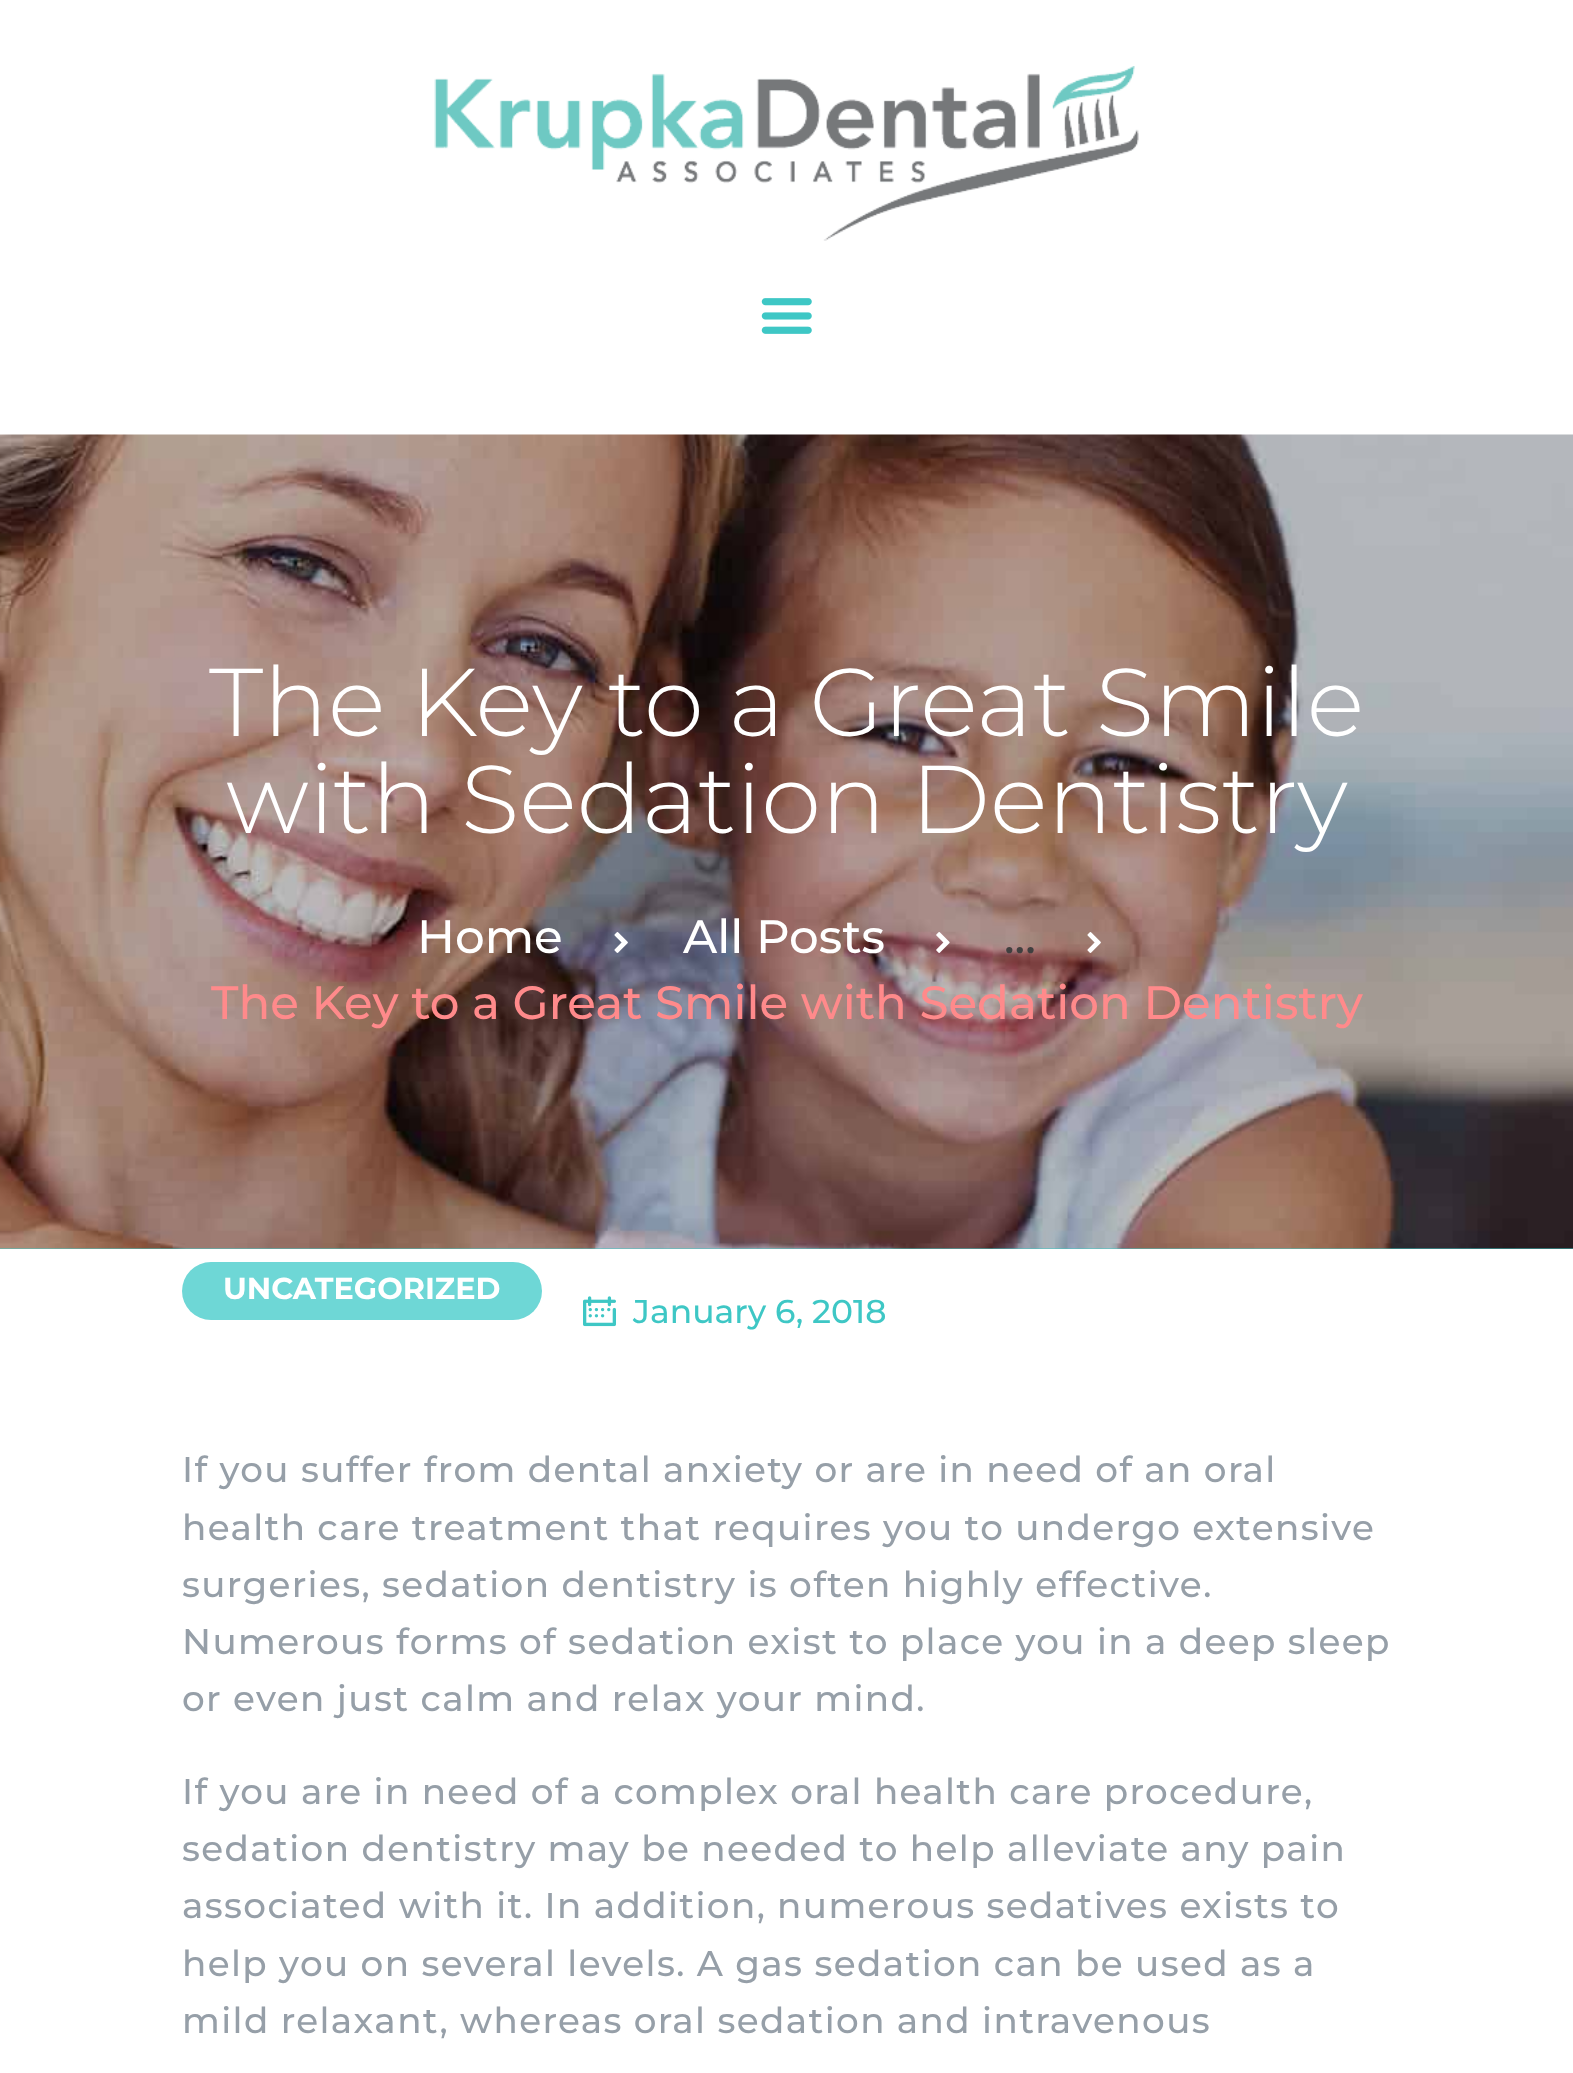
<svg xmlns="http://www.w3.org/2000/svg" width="1573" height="2073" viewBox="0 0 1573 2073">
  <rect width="100%" height="100%" fill="#ffffff"/>
  <image x="434" y="66" width="705" height="175" href="img1.png"/>
  <image x="761" y="298" width="51" height="36" href="img2.png"/>
  <rect x="0" y="1248" width="1573" height="1" fill="#3ec7c5"/>
  <image x="0" y="434" width="1573" height="815" href="img3.png"/>
  <text x="209" y="736" font-family="Montserrat" font-size="96.25" font-weight="300" fill="#ffffff">The Key to a Great Smile</text>
  <text x="226" y="833" font-family="Montserrat" font-size="96.25" font-weight="300" fill="#ffffff">with Sedation Dentistry</text>
  <text x="417" y="953" font-family="Montserrat" font-size="46.75" font-weight="500" fill="#ffffff">Home</text>
  <image x="614" y="932" width="14" height="21" href="img4.png"/>
  <text x="683" y="953" font-family="Montserrat" font-size="46.75" font-weight="500" fill="#ffffff">All Posts</text>
  <image x="936" y="932" width="14" height="21" href="img5.png"/>
  <text x="1004" y="953" font-family="Montserrat" font-size="46.75" font-weight="500" fill="#404040">...</text>
  <image x="1087" y="932" width="14" height="21" href="img6.png"/>
  <text x="211" y="1019" font-family="Montserrat" font-size="46.75" font-weight="500" fill="#ff8a8b">The Key to a Great Smile with Sedation Dentistry</text>
  <rect x="182" y="1262" width="360" height="58" rx="29" fill="#6ed7d6"/>
  <text x="223" y="1299" font-family="Montserrat" font-size="30.25" font-weight="bold" fill="#ffffff">UNCATEGORIZED</text>
  <image x="583" y="1296" width="33" height="31" href="img7.png"/>
  <text x="633" y="1323" font-family="Montserrat" font-size="33" font-weight="500" fill="#3ec7c5">January 6, 2018</text>
  <text x="182" y="1482" font-family="Montserrat" font-size="35.75" font-weight="500" letter-spacing="1.38" fill="#969fa8">If you suffer from dental anxiety or are in need of an oral</text>
  <text x="182" y="1540" font-family="Montserrat" font-size="35.75" font-weight="500" letter-spacing="1.38" fill="#969fa8">health care treatment that requires you to undergo extensive</text>
  <text x="182" y="1597" font-family="Montserrat" font-size="35.75" font-weight="500" letter-spacing="1.38" fill="#969fa8">surgeries, sedation dentistry is often highly effective.</text>
  <text x="182" y="1654" font-family="Montserrat" font-size="35.75" font-weight="500" letter-spacing="1.38" fill="#969fa8">Numerous forms of sedation exist to place you in a deep sleep</text>
  <text x="182" y="1711" font-family="Montserrat" font-size="35.75" font-weight="500" letter-spacing="1.38" fill="#969fa8">or even just calm and relax your mind.</text>
  <text x="182" y="1804" font-family="Montserrat" font-size="35.75" font-weight="500" letter-spacing="1.38" fill="#969fa8">If you are in need of a complex oral health care procedure,</text>
  <text x="182" y="1861" font-family="Montserrat" font-size="35.75" font-weight="500" letter-spacing="1.38" fill="#969fa8">sedation dentistry may be needed to help alleviate any pain</text>
  <text x="182" y="1918" font-family="Montserrat" font-size="35.75" font-weight="500" letter-spacing="1.38" fill="#969fa8">associated with it. In addition, numerous sedatives exists to</text>
  <text x="182" y="1976" font-family="Montserrat" font-size="35.75" font-weight="500" letter-spacing="1.38" fill="#969fa8">help you on several levels. A gas sedation can be used as a</text>
  <text x="182" y="2033" font-family="Montserrat" font-size="35.75" font-weight="500" letter-spacing="1.38" fill="#969fa8">mild relaxant, whereas oral sedation and intravenous</text>
</svg>
